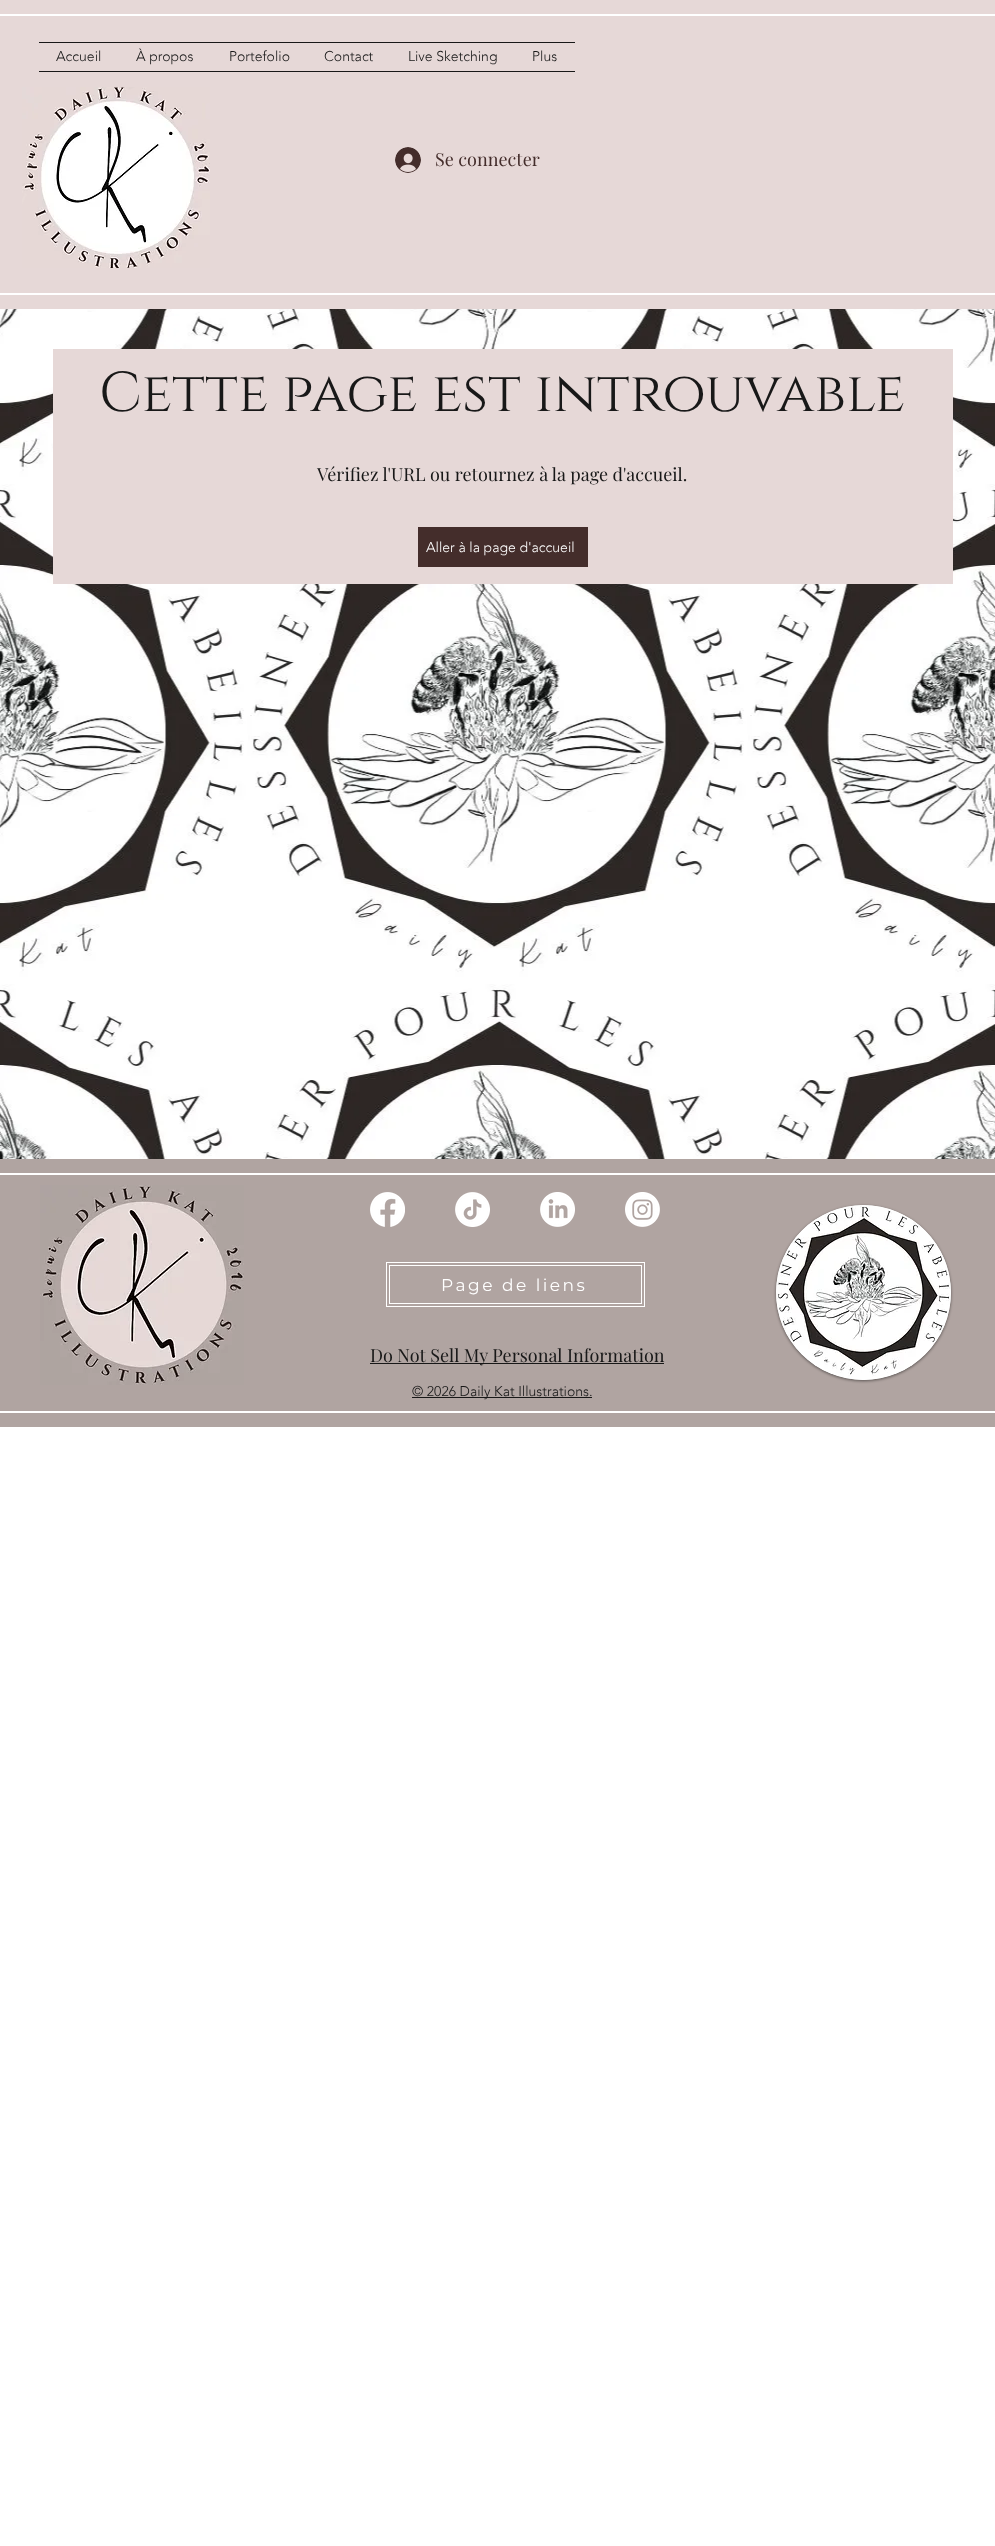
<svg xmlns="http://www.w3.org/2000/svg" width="995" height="2546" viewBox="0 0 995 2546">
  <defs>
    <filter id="blur1" x="-50%" y="-200%" width="200%" height="500%"><feGaussianBlur stdDeviation="1.5"/></filter>
  </defs>
  <rect width="100%" height="100%" fill="#ffffff"/>
  <rect x="0" y="0" width="995" height="309" fill="#e6d8d7"/>
  <rect x="0" y="14" width="995" height="2" fill="#ffffff"/>
  <rect x="0" y="293" width="995" height="2" fill="#ffffff"/>
  <rect x="39" y="42" width="536" height="1" fill="#181818"/>
  <rect x="39" y="71" width="536" height="1" fill="#181818"/>
  <text x="56" y="61" font-family="'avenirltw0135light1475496'" font-size="14" font-weight="300" fill="#181818">Accueil</text>
  <text x="136" y="61" font-family="'avenirltw0135light1475496'" font-size="14" font-weight="300" fill="#181818">À propos</text>
  <text x="229" y="61" font-family="'avenirltw0135light1475496'" font-size="14" font-weight="300" fill="#181818">Portefolio</text>
  <text x="324" y="61" font-family="'avenirltw0135light1475496'" font-size="14" font-weight="300" fill="#181818">Contact</text>
  <text x="408" y="61" font-family="'avenirltw0135light1475496'" font-size="14" font-weight="300" fill="#181818">Live Sketching</text>
  <text x="532" y="61" font-family="'avenirltw0135light1475496'" font-size="14" font-weight="300" fill="#181818">Plus</text>
  <image x="22" y="87" width="188" height="181" href="img1.png"/>
  <image x="395" y="147" width="26" height="26" href="img2.png"/>
  <text x="435" y="166" font-family="Playfair Display" font-size="18" fill="#442d2b">Se connecter</text>
  <image x="0" y="309" width="995" height="850" href="img3.png"/>
  <rect x="53" y="349" width="900" height="235" fill="#e6d8d7"/>
  <text x="99" y="411" font-family="Cinzel" font-size="56" fill="#181818">Cette page est introuvable</text>
  <text x="317" y="481" font-family="Playfair Display" font-size="18" fill="#181818">Vérifiez l'URL ou retournez à la page d'accueil.</text>
  <rect x="418" y="527" width="170" height="40" fill="#442d2b"/>
  <text x="426" y="552" font-family="'avenirltw0135light1475496'" font-size="14" font-weight="300" fill="#ffffff">Aller à la page d'accueil</text>
  <rect x="0" y="1159" width="995" height="268" fill="#b0a4a1"/>
  <rect x="0" y="1173" width="995" height="2" fill="#ffffff"/>
  <rect x="0" y="1411" width="995" height="2" fill="#ffffff"/>
  <image x="40" y="1185" width="204" height="200" href="img4.png"/>
  <image x="370" y="1192" width="35" height="35" href="img5.png"/>
  <image x="455" y="1192" width="35" height="35" href="img6.png"/>
  <image x="540" y="1192" width="35" height="35" href="img7.png"/>
  <image x="625" y="1192" width="35" height="35" href="img8.png"/>
  <rect x="776" y="1206" width="175" height="175" rx="87.5" fill="#000000" fill-opacity="0.5" filter="url(#blur1)"/>
  <circle cx="863.5" cy="1292.5" r="87.5" fill="#ffffff"/>
  <image x="776" y="1205" width="175" height="175" href="img9.png"/>
  <rect x="386.5" y="1262.5" width="258" height="44" fill="none" stroke="#ffffff"/>
  <rect x="389.5" y="1265.5" width="252" height="38" fill="none" stroke="#ffffff"/>
  <text x="441" y="1291" font-family="Montserrat" font-size="17" letter-spacing="2.5" fill="#ffffff">Page de liens</text>
  <rect x="370" y="1363" width="294" height="1" fill="#181818"/>
  <text x="370" y="1362" font-family="Playfair Display" font-size="18" fill="#181818">Do Not Sell My Personal Information</text>
  <rect x="412" y="1397" width="180" height="1" fill="#181818"/>
  <text x="412" y="1396" font-family="'avenirltw0135light1475496'" font-size="14" font-weight="300" fill="#181818">© 2026 Daily Kat Illustrations.</text>
</svg>
